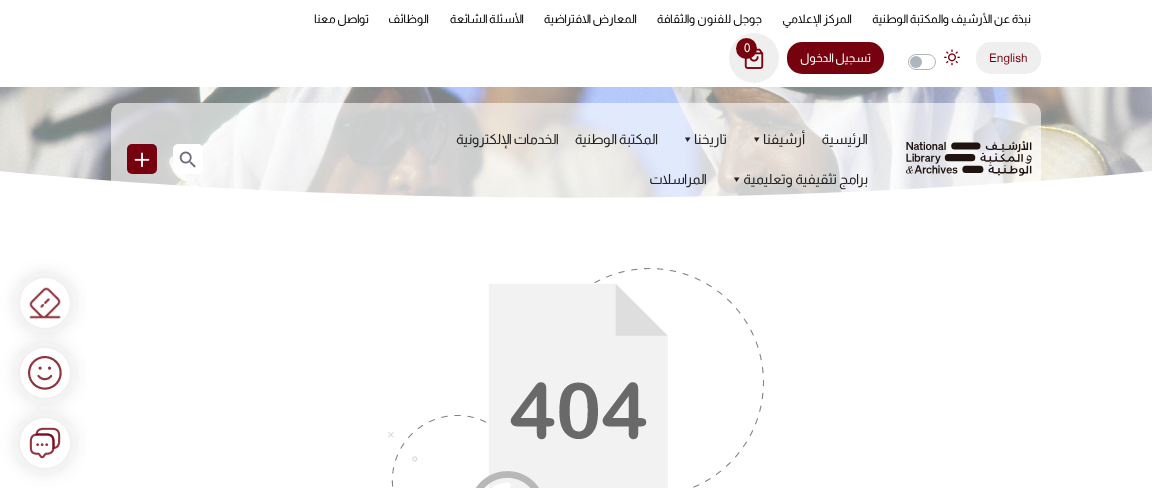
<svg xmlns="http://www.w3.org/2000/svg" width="1152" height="488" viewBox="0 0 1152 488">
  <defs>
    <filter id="blur1" x="-50%" y="-200%" width="200%" height="500%"><feGaussianBlur stdDeviation="10"/></filter>
  </defs>
  <rect width="100%" height="100%" fill="#ffffff"/>
  <text x="1031" y="23" font-family="Almarai" font-size="12" direction="rtl" fill="#000000">نبذة عن الأرشيف والمكتبة الوطنية</text>
  <text x="852" y="23" font-family="Almarai" font-size="12" direction="rtl" fill="#000000">المركز الإعلامي</text>
  <text x="762" y="23" font-family="Almarai" font-size="12" direction="rtl" fill="#000000">جوجل للفنون والثقافة</text>
  <text x="637" y="23" font-family="Almarai" font-size="12" direction="rtl" fill="#000000">المعارض الافتراضية</text>
  <text x="524" y="23" font-family="Almarai" font-size="12" direction="rtl" fill="#000000">الأسئلة الشائعة</text>
  <text x="429" y="23" font-family="Almarai" font-size="12" direction="rtl" fill="#000000">الوظائف</text>
  <text x="369" y="23" font-family="Almarai" font-size="12" direction="rtl" fill="#000000">تواصل معنا</text>
  <circle cx="754" cy="58" r="25" fill="#efefef"/>
  <image x="744" y="48" width="20" height="21" href="img1.png"/>
  <circle cx="746.5" cy="48.5" r="10.5" fill="#75020e"/>
  <text x="744" y="52" font-family="Almarai" font-size="12" fill="#ffffff">0</text>
  <rect x="976" y="42" width="65" height="32" rx="15" fill="#efefef"/>
  <text x="989" y="62" font-family="Almarai" font-size="12" fill="#75020e">English</text>
  <image x="944" y="49" width="16" height="17" href="img2.png"/>
  <rect x="908.5" y="54.5" width="27" height="15" rx="7.5" fill="none" stroke="#adb5bd"/>
  <circle cx="916" cy="62" r="6" fill="#adb5bd"/>
  <rect x="787" y="42" width="97" height="32" rx="15" fill="#75020e"/>
  <text x="871" y="62" font-family="Almarai" font-size="12" direction="rtl" fill="#ffffff">تسجيل الدخول</text>
  <image x="0" y="87" width="1152" height="111" href="img6.png"/>
  <rect x="111" y="103" width="930" height="112" rx="10" fill="#ffffff" fill-opacity="0.6"/>
  <image x="906" y="141" width="126" height="35" href="img3.png"/>
  <text x="868" y="144" font-family="Almarai" font-size="14" direction="rtl" fill="#222222">الرئيسية</text>
  <text x="805" y="144" font-family="Almarai" font-size="14" direction="rtl" fill="#222222">أرشيفنا</text>
  <path d="M759.5 137.5L756.5 142L754 137.5Z" fill="#222222"/>
  <text x="727" y="144" font-family="Almarai" font-size="14" direction="rtl" fill="#222222">تاريخنا</text>
  <path d="M690.5 137.5L687.5 142L685 137.5Z" fill="#222222"/>
  <text x="658" y="144" font-family="Almarai" font-size="14" direction="rtl" fill="#222222">المكتبة الوطنية</text>
  <text x="559" y="144" font-family="Almarai" font-size="14" direction="rtl" fill="#222222">الخدمات الإلكترونية</text>
  <text x="868" y="184" font-family="Almarai" font-size="14" direction="rtl" fill="#222222">برامج تثقيفية وتعليمية</text>
  <path d="M739.5 177.5L736.5 182L734 177.5Z" fill="#222222"/>
  <text x="707" y="184" font-family="Almarai" font-size="14" direction="rtl" fill="#222222">المراسلات</text>
  <rect x="173" y="144" width="30" height="30" rx="5" fill="#ffffff"/>
  <image x="179" y="151" width="17" height="17" href="img4.png"/>
  <rect x="127" y="144" width="30" height="30" rx="5" fill="#75020e"/>
  <image x="134" y="152" width="16" height="16" href="img5.png"/>
  <image x="388" y="268" width="376" height="220" href="img7.png"/>
  <rect x="20" y="278" width="50" height="50" rx="25" fill="#333333" fill-opacity="0.2" filter="url(#blur1)"/>
  <circle cx="45" cy="303" r="25" fill="#ffffff"/>
  <image x="29" y="287" width="32" height="32" href="img8.png"/>
  <rect x="20" y="348" width="50" height="50" rx="25" fill="#333333" fill-opacity="0.2" filter="url(#blur1)"/>
  <circle cx="45" cy="373" r="25" fill="#ffffff"/>
  <image x="28" y="356" width="34" height="34" href="img9.png"/>
  <rect x="20" y="418" width="50" height="50" rx="25" fill="#333333" fill-opacity="0.2" filter="url(#blur1)"/>
  <circle cx="45" cy="443" r="25" fill="#ffffff"/>
  <image x="29" y="427" width="32" height="32" href="img10.png"/>
</svg>
